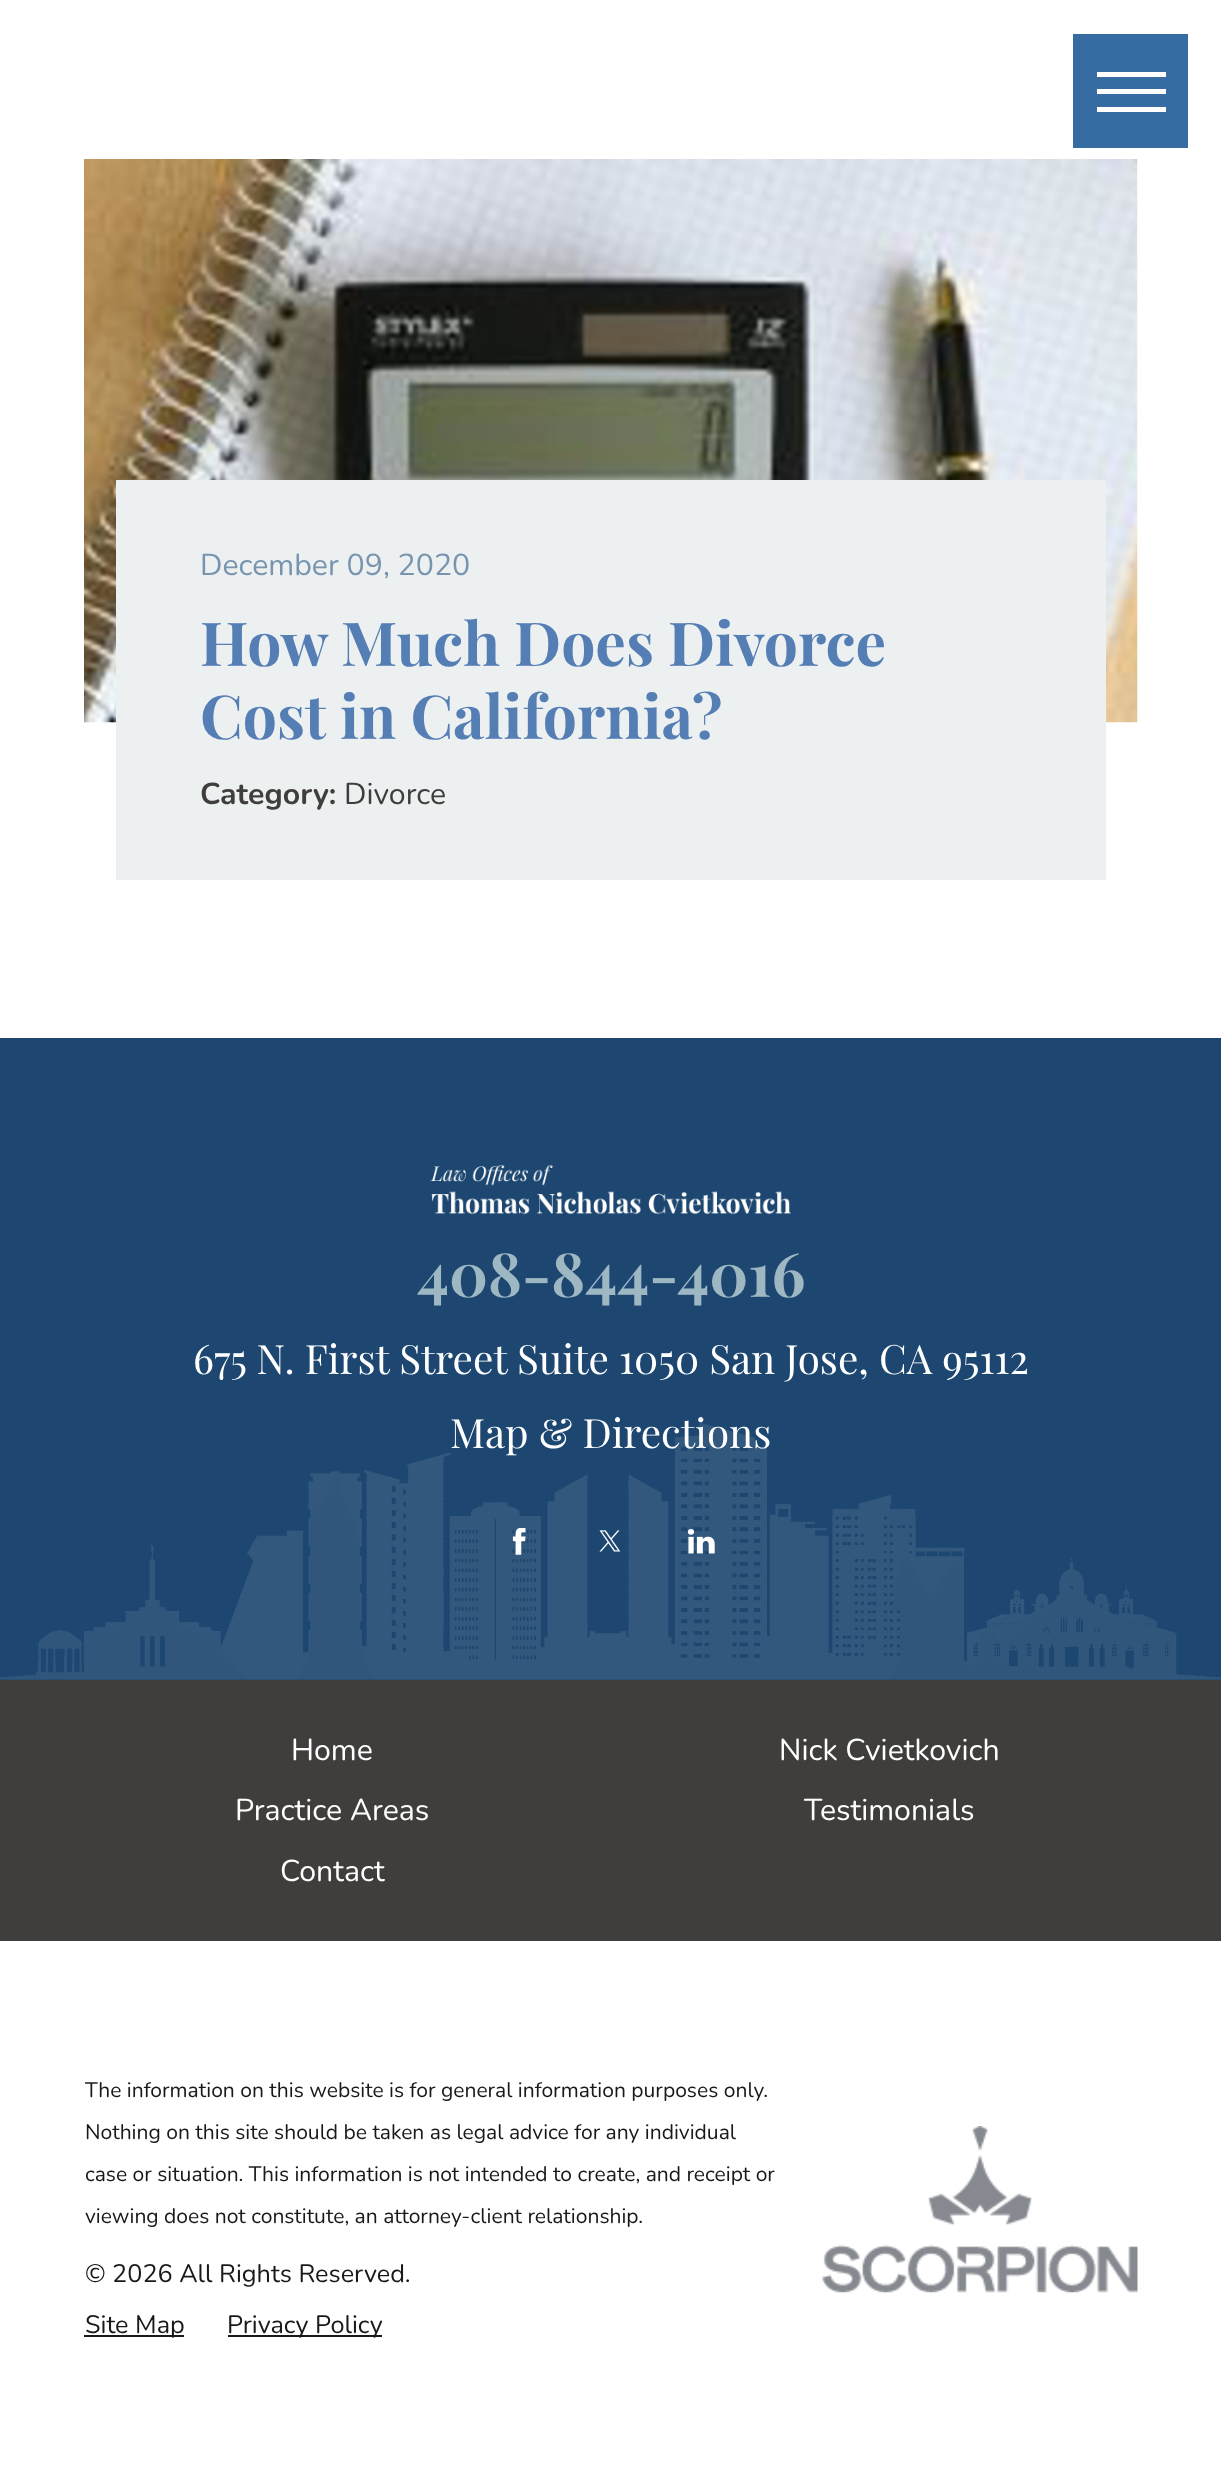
<svg xmlns="http://www.w3.org/2000/svg" width="1221" height="2478" viewBox="0 0 1221 2478">
  <rect width="100%" height="100%" fill="#ffffff"/>
  <rect x="1073" y="34" width="115" height="114" fill="#366ca1"/>
  <rect x="1097" y="72" width="69" height="5" fill="#ffffff"/>
  <rect x="1097" y="89" width="69" height="5" fill="#ffffff"/>
  <rect x="1097" y="107" width="69" height="5" fill="#ffffff"/>
  <image x="84" y="159" width="1054" height="564" href="img1.png"/>
  <rect x="116" y="480" width="990" height="400" fill="#ecf0f1"/>
  <text x="200" y="575" font-family="Nunito" font-size="30.25" fill="#7894ae">December 09, 2020</text>
  <text x="200" y="666" font-family="Playfair Display" font-size="60.6" font-weight="bold" fill="#557eb5">How Much Does Divorce</text>
  <text x="200" y="739" font-family="Playfair Display" font-size="60.6" font-weight="bold" fill="#557eb5">Cost in California?</text>
  <text x="200" y="804" font-family="Nunito" font-size="30.25" font-weight="bold" fill="#3f3e3c">Category:</text>
  <text x="344" y="804" font-family="Nunito" font-size="30.25" fill="#3f3e3c">Divorce</text>
  <rect x="0" y="1680" width="1221" height="261" fill="#3f3e3c"/>
  <rect x="0" y="1038" width="1221" height="642" fill="#1d4770"/>
  <image x="430" y="1165" width="361" height="50" href="img2.png"/>
  <text x="417" y="1297" font-family="Playfair Display" font-size="60.6" font-weight="bold" fill="#9db7c3">408-844-4016</text>
  <text x="193" y="1374" font-family="Playfair Display" font-size="40.4" fill="#ffffff">675 N. First Street Suite 1050 San Jose, CA 95112</text>
  <image x="0" y="1422" width="1221" height="258" href="img6.png"/>
  <text x="450" y="1448" font-family="Playfair Display" font-size="40.4" fill="#ffffff">Map &amp; Directions</text>
  <image x="512" y="1528" width="14" height="27" href="img3.png"/>
  <image x="599" y="1530" width="22" height="22" href="img4.png"/>
  <image x="688" y="1529" width="27" height="25" href="img5.png"/>
  <text x="291" y="1760" font-family="Nunito" font-size="30.25" fill="#ffffff">Home</text>
  <text x="779" y="1760" font-family="Nunito" font-size="30.25" fill="#ffffff">Nick Cvietkovich</text>
  <text x="235" y="1820" font-family="Nunito" font-size="30.25" fill="#ffffff">Practice Areas</text>
  <text x="804" y="1820" font-family="Nunito" font-size="30.25" fill="#ffffff">Testimonials</text>
  <text x="280" y="1881" font-family="Nunito" font-size="30.25" fill="#ffffff">Contact</text>
  <text x="85" y="2097" font-family="Nunito" font-size="21.05" fill="#191919">The information on this website is for general information purposes only.</text>
  <text x="85" y="2139" font-family="Nunito" font-size="21.05" fill="#191919">Nothing on this site should be taken as legal advice for any individual</text>
  <text x="85" y="2181" font-family="Nunito" font-size="21.05" fill="#191919">case or situation. This information is not intended to create, and receipt or</text>
  <text x="85" y="2223" font-family="Nunito" font-size="21.05" fill="#191919">viewing does not constitute, an attorney-client relationship.</text>
  <text x="85" y="2282" font-family="Nunito" font-size="25.25" fill="#191919">© 2026 All Rights Reserved.</text>
  <rect x="84" y="2335" width="100" height="2" fill="#191919"/>
  <text x="85" y="2333" font-family="Nunito" font-size="25.25" fill="#191919">Site Map</text>
  <rect x="228" y="2335" width="154" height="2" fill="#191919"/>
  <text x="227" y="2333" font-family="Nunito" font-size="25.25" fill="#191919">Privacy Policy</text>
  <image x="822" y="2126" width="316" height="167" href="img7.png"/>
</svg>
